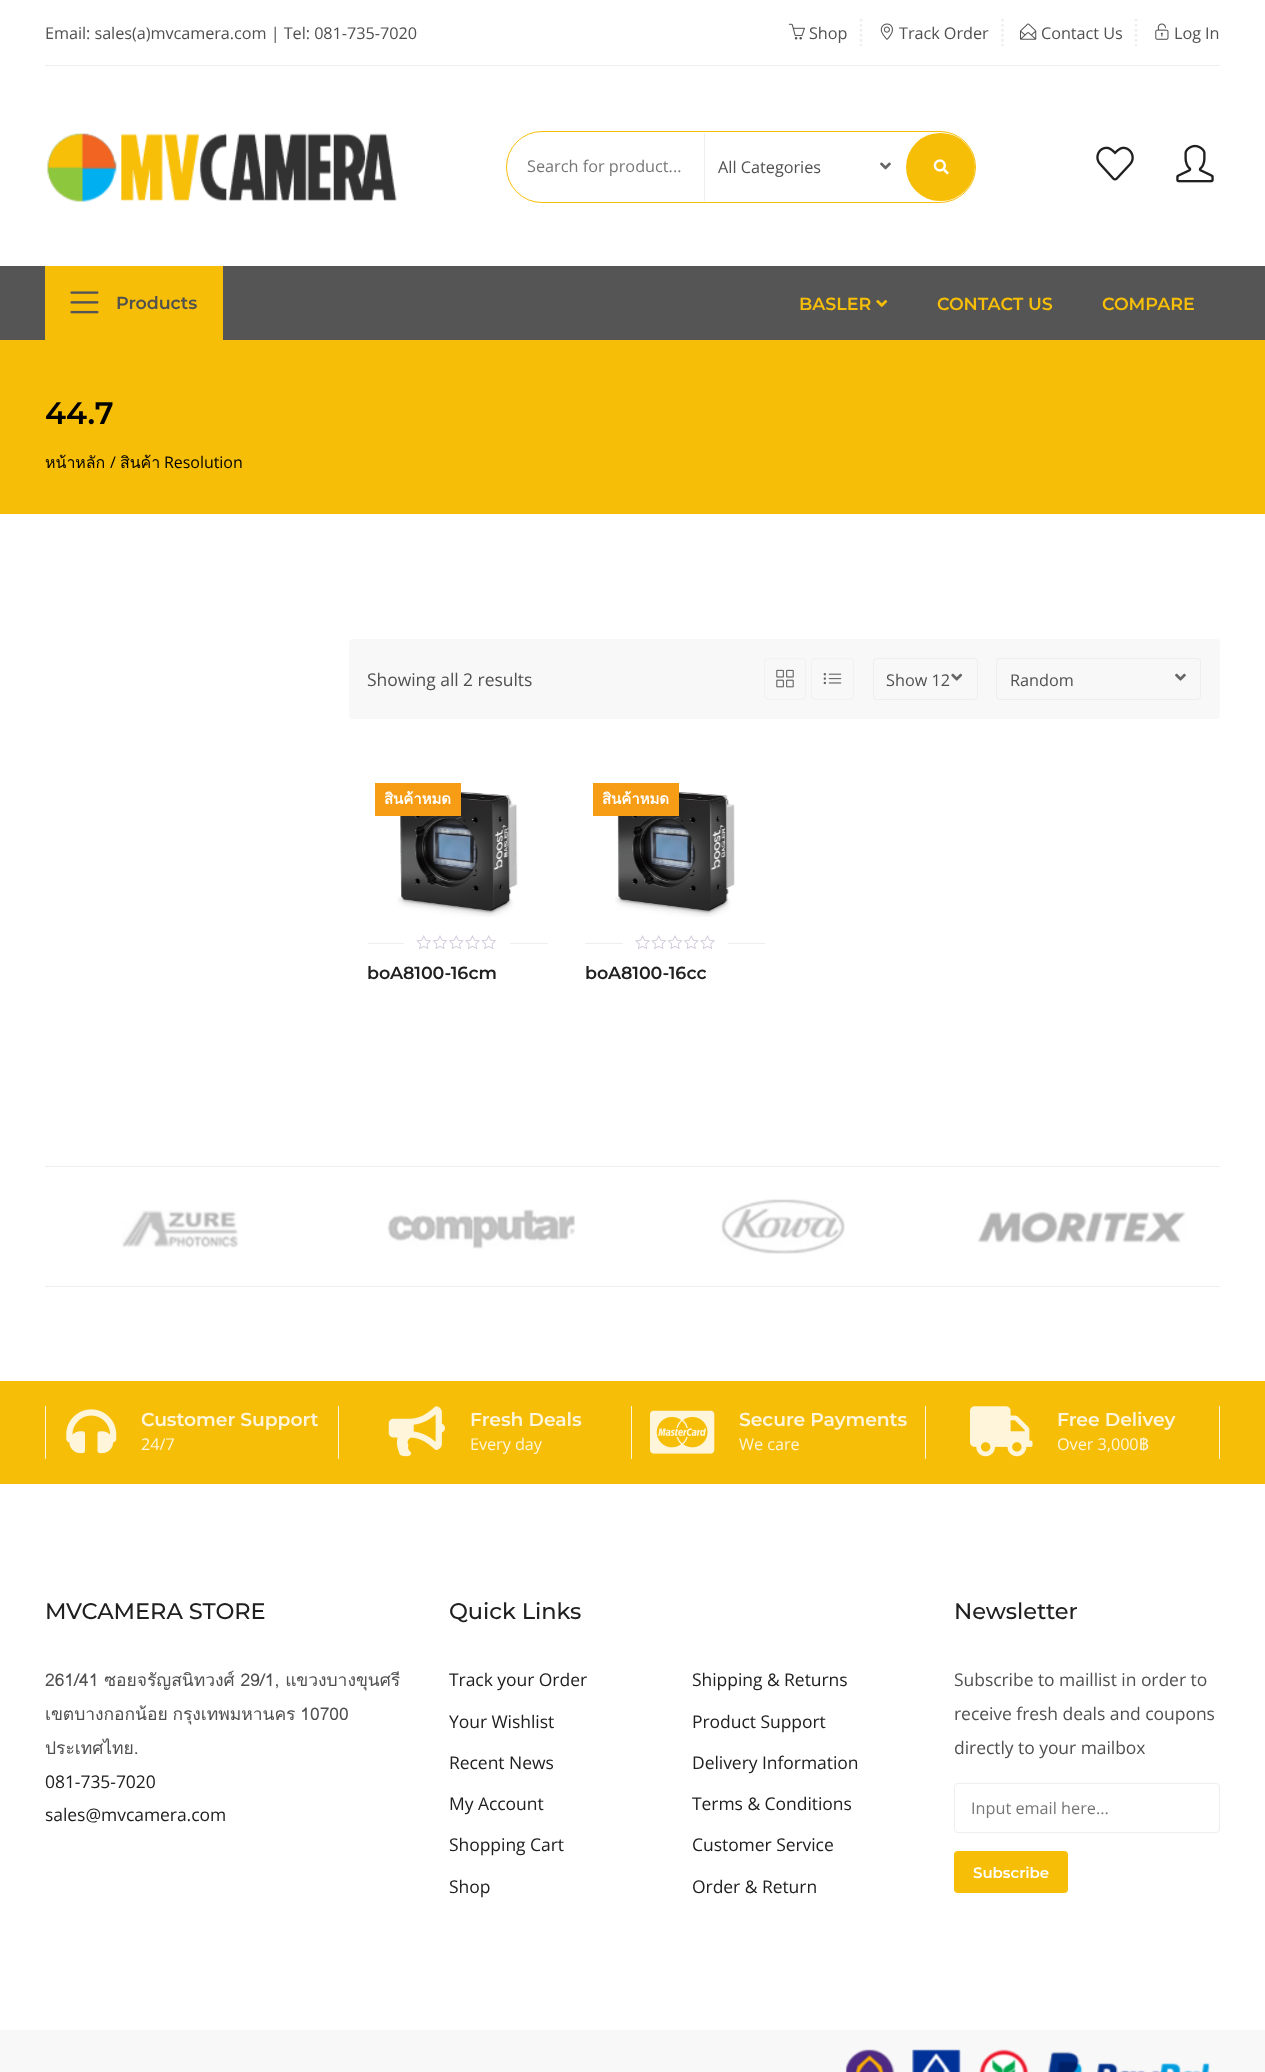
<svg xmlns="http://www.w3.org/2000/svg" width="1265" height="2072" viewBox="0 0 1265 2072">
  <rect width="100%" height="100%" fill="#ffffff"/>
  <rect x="45" y="65" width="1175" height="1" fill="#eeeeee"/>
  <text x="45" y="39" font-family="Open Sans" font-size="16.25" letter-spacing="-0.05" fill="#505050">Email: sales(a)mvcamera.com | Tel: 081-735-7020</text>
  <path d="M861 19V46" fill="none" stroke="#eeeeee" stroke-width="2.5" stroke-dasharray="2.5 2.5"/>
  <image x="788" y="23" width="17" height="17" href="img1.png"/>
  <text x="809" y="39" font-family="Open Sans" font-size="16.25" letter-spacing="-0.05" fill="#505050">Shop</text>
  <path d="M1002.5 19V46" fill="none" stroke="#eeeeee" stroke-width="2.5" stroke-dasharray="2.5 2.5"/>
  <image x="880" y="23" width="13" height="17" href="img2.png"/>
  <text x="899" y="39" font-family="Open Sans" font-size="16.25" letter-spacing="-0.05" fill="#505050">Track Order</text>
  <path d="M1136 19V46" fill="none" stroke="#eeeeee" stroke-width="2.5" stroke-dasharray="2.5 2.5"/>
  <image x="1020" y="23" width="17" height="17" href="img3.png"/>
  <text x="1041" y="39" font-family="Open Sans" font-size="16.25" letter-spacing="-0.05" fill="#505050">Contact Us</text>
  <image x="1155" y="23" width="14" height="17" href="img4.png"/>
  <text x="1174" y="39" font-family="Open Sans" font-size="16.25" letter-spacing="-0.05" fill="#505050">Log In</text>
  <image x="47" y="133" width="350" height="69" href="img5.png"/>
  <rect x="506.5" y="131.5" width="469" height="71" rx="35.5" fill="none" stroke="#f7be08"/>
  <text x="527" y="172" font-family="Open Sans" font-size="16.25" fill="#777777">Search for product...</text>
  <rect x="704" y="133" width="1" height="68" fill="#eeeeee"/>
  <text x="718" y="173" font-family="Open Sans" font-size="16.25" fill="#505050">All Categories</text>
  <image x="880" y="162" width="11" height="8" href="img6.png"/>
  <rect x="906" y="133" width="69" height="68" rx="34" fill="#f7be08"/>
  <image x="933" y="159" width="16" height="16" href="img7.png"/>
  <image x="1096" y="146" width="38" height="35" href="img8.png"/>
  <image x="1176" y="144" width="38" height="39" href="img9.png"/>
  <rect x="0" y="266" width="1265" height="74" fill="#555555"/>
  <rect x="45" y="266" width="178" height="74" fill="#f7be08"/>
  <image x="70" y="291" width="29" height="23" href="img10.png"/>
  <text x="116" y="309" font-family="Montserrat" font-size="17.5" font-weight="600" letter-spacing="-0.05" fill="#505050">Products</text>
  <text x="799" y="310" font-family="Montserrat" font-size="17.5" font-weight="600" letter-spacing="-0.05" fill="#f7be08">BASLER</text>
  <image x="876" y="300" width="12" height="7" href="img11.png"/>
  <text x="937" y="310" font-family="Montserrat" font-size="17.5" font-weight="600" letter-spacing="-0.05" fill="#f7be08">CONTACT US</text>
  <text x="1102" y="310" font-family="Montserrat" font-size="17.5" font-weight="600" letter-spacing="-0.05" fill="#f7be08">COMPARE</text>
  <rect x="0" y="340" width="1265" height="174" fill="#f7be08"/>
  <text x="45" y="424" font-family="Montserrat" font-size="31" font-weight="600" letter-spacing="-0.05" fill="#000000">44.7</text>
  <text x="45" y="468" font-family="Loma" font-size="16" letter-spacing="-0.05" fill="#000000">หน้าหลัก</text>
  <text x="110" y="468" font-family="Open Sans" font-size="16" letter-spacing="-0.05" fill="#000000">/</text>
  <text x="120" y="468" font-family="Loma" font-size="16" letter-spacing="-0.05" fill="#000000">สินค้า</text>
  <text x="164" y="468" font-family="Open Sans" font-size="16" letter-spacing="-0.05" fill="#000000">Resolution</text>
  <rect x="349" y="639" width="871" height="80" rx="4" fill="#f8f8f8"/>
  <text x="367" y="686" font-family="Open Sans" font-size="17.5" letter-spacing="-0.05" fill="#505050">Showing all 2 results</text>
  <rect x="764.5" y="658.5" width="41" height="41" rx="3.5" fill="none" stroke="#f1f1f1"/>
  <image x="776" y="669" width="18" height="19" href="img12.png"/>
  <rect x="811.5" y="658.5" width="42" height="41" rx="3.5" fill="none" stroke="#f1f1f1"/>
  <image x="823" y="673" width="19" height="12" href="img13.png"/>
  <image x="951" y="673" width="12" height="8" href="img14.png"/>
  <rect x="873.5" y="658.5" width="104" height="41" rx="3.5" fill="none" stroke="#eeeeee"/>
  <text x="886" y="686" font-family="Open Sans" font-size="16.25" fill="#505050">Show 12</text>
  <image x="1175" y="673" width="11" height="8" href="img15.png"/>
  <rect x="996.5" y="658.5" width="204" height="41" rx="3.5" fill="none" stroke="#eeeeee"/>
  <text x="1010" y="686" font-family="Open Sans" font-size="16.25" fill="#505050">Random</text>
  <image x="397" y="792" width="121" height="125" href="img16.png"/>
  <rect x="375" y="783" width="86" height="33" fill="#f69d15"/>
  <text x="384" y="804" font-family="Loma" font-size="15" font-weight="bold" letter-spacing="-0.05" fill="#ffffff">สินค้าหมด</text>
  <rect x="368" y="943" width="180" height="1" fill="#eeeeee"/>
  <rect x="404" y="943" width="106" height="1" fill="#ffffff"/>
  <image x="416" y="935" width="80" height="14" href="img17.png"/>
  <text x="367" y="979" font-family="Montserrat" font-size="17.5" font-weight="600" letter-spacing="-0.05" fill="#202020">boA8100-16cm</text>
  <image x="615" y="792" width="120" height="125" href="img18.png"/>
  <rect x="593" y="783" width="86" height="33" fill="#f69d15"/>
  <text x="602" y="804" font-family="Loma" font-size="15" font-weight="bold" letter-spacing="-0.05" fill="#ffffff">สินค้าหมด</text>
  <rect x="585" y="943" width="180" height="1" fill="#eeeeee"/>
  <rect x="623" y="943" width="105" height="1" fill="#ffffff"/>
  <image x="635" y="935" width="80" height="14" href="img19.png"/>
  <text x="585" y="979" font-family="Montserrat" font-size="17.5" font-weight="600" letter-spacing="-0.05" fill="#202020">boA8100-16cc</text>
  <rect x="45" y="1166" width="1175" height="1" fill="#eeeeee"/>
  <rect x="45" y="1286" width="1175" height="1" fill="#eeeeee"/>
  <image x="122" y="1210" width="117" height="38" href="img20.png"/>
  <image x="387" y="1209" width="188" height="40" href="img21.png"/>
  <image x="721" y="1199" width="124" height="55" href="img22.png"/>
  <image x="977" y="1211" width="209" height="33" href="img23.png"/>
  <rect x="0" y="1381" width="1265" height="103" fill="#f7be08"/>
  <rect x="338" y="1406" width="1" height="53" fill="#fef5da"/>
  <rect x="45" y="1406" width="1" height="53" fill="#fef5da"/>
  <image x="66" y="1409" width="51" height="45" href="img24.png"/>
  <text x="141" y="1426" font-family="Montserrat" font-size="18.75" font-weight="600" letter-spacing="-0.05" fill="#fef5da">Customer Support</text>
  <text x="141" y="1450" font-family="Open Sans" font-size="16.25" letter-spacing="-0.05" fill="#fef5da">24/7</text>
  <rect x="631" y="1406" width="1" height="53" fill="#fef5da"/>
  <image x="388" y="1406" width="57" height="51" href="img25.png"/>
  <text x="470" y="1426" font-family="Montserrat" font-size="18.75" font-weight="600" letter-spacing="-0.05" fill="#fef5da">Fresh Deals</text>
  <text x="470" y="1450" font-family="Open Sans" font-size="16.25" letter-spacing="-0.05" fill="#fef5da">Every day</text>
  <rect x="925" y="1406" width="1" height="53" fill="#fef5da"/>
  <image x="650" y="1410" width="65" height="44" href="img26.png"/>
  <text x="739" y="1426" font-family="Montserrat" font-size="18.75" font-weight="600" letter-spacing="-0.05" fill="#fef5da">Secure Payments</text>
  <text x="739" y="1450" font-family="Open Sans" font-size="16.25" letter-spacing="-0.05" fill="#fef5da">We care</text>
  <rect x="1219" y="1406" width="1" height="53" fill="#fef5da"/>
  <image x="970" y="1406" width="63" height="51" href="img27.png"/>
  <text x="1057" y="1426" font-family="Montserrat" font-size="18.75" font-weight="600" letter-spacing="-0.05" fill="#fef5da">Free Delivey</text>
  <text x="1057" y="1450" font-family="Open Sans" font-size="16.25" letter-spacing="-0.05" fill="#fef5da">Over 3,000</text>
  <text x="1139" y="1450" font-family="Loma" font-size="16.25" letter-spacing="-0.05" fill="#fef5da">฿</text>
  <text x="45" y="1619" font-family="Montserrat" font-size="22.5" font-weight="500" letter-spacing="-0.05" fill="#202020">MVCAMERA STORE</text>
  <text x="45" y="1686" font-family="Loma" font-size="17.5" letter-spacing="-0.05" fill="#505050">261/41 ซอยจรัญสนิทวงศ์ 29/1, แขวงบางขุนศรี</text>
  <text x="45" y="1720" word-spacing="-1" font-family="Loma" font-size="17.5" letter-spacing="-0.05" fill="#505050">เขตบางกอกน้อย กรุงเทพมหานคร 10700</text>
  <text x="45" y="1754" font-family="Loma" font-size="17.5" letter-spacing="-0.05" fill="#505050">ประเทศไทย.</text>
  <text x="45" y="1788" font-family="Open Sans" font-size="17.5" letter-spacing="-0.05" fill="#202020">081-735-7020</text>
  <text x="45" y="1821" font-family="Open Sans" font-size="17.5" letter-spacing="-0.05" fill="#202020">sales@mvcamera.com</text>
  <text x="449" y="1619" font-family="Montserrat" font-size="22.5" font-weight="500" letter-spacing="-0.05" fill="#202020">Quick Links</text>
  <text x="449" y="1686" font-family="Open Sans" font-size="17.5" letter-spacing="-0.05" fill="#202020">Track your Order</text>
  <text x="692" y="1686" font-family="Open Sans" font-size="17.5" letter-spacing="-0.05" fill="#202020">Shipping &amp; Returns</text>
  <text x="449" y="1728" font-family="Open Sans" font-size="17.5" letter-spacing="-0.05" fill="#202020">Your Wishlist</text>
  <text x="692" y="1728" font-family="Open Sans" font-size="17.5" letter-spacing="-0.05" fill="#202020">Product Support</text>
  <text x="449" y="1769" font-family="Open Sans" font-size="17.5" letter-spacing="-0.05" fill="#202020">Recent News</text>
  <text x="692" y="1769" font-family="Open Sans" font-size="17.5" letter-spacing="-0.05" fill="#202020">Delivery Information</text>
  <text x="449" y="1810" font-family="Open Sans" font-size="17.5" letter-spacing="-0.05" fill="#202020">My Account</text>
  <text x="692" y="1810" font-family="Open Sans" font-size="17.5" letter-spacing="-0.05" fill="#202020">Terms &amp; Conditions</text>
  <text x="449" y="1851" font-family="Open Sans" font-size="17.5" letter-spacing="-0.05" fill="#202020">Shopping Cart</text>
  <text x="692" y="1851" font-family="Open Sans" font-size="17.5" letter-spacing="-0.05" fill="#202020">Customer Service</text>
  <text x="449" y="1893" font-family="Open Sans" font-size="17.5" letter-spacing="-0.05" fill="#202020">Shop</text>
  <text x="692" y="1893" font-family="Open Sans" font-size="17.5" letter-spacing="-0.05" fill="#202020">Order &amp; Return</text>
  <text x="954" y="1619" font-family="Montserrat" font-size="22.5" font-weight="500" letter-spacing="-0.05" fill="#202020">Newsletter</text>
  <text x="954" y="1686" font-family="Open Sans" font-size="17.5" letter-spacing="-0.05" fill="#505050">Subscribe to maillist in order to</text>
  <text x="954" y="1720" font-family="Open Sans" font-size="17.5" letter-spacing="-0.05" fill="#505050">receive fresh deals and coupons</text>
  <text x="954" y="1754" font-family="Open Sans" font-size="17.5" letter-spacing="-0.05" fill="#505050">directly to your mailbox</text>
  <rect x="954.5" y="1783.5" width="265" height="49" rx="3.5" fill="none" stroke="#eeeeee"/>
  <text x="971" y="1814" font-family="Open Sans" font-size="16.25" fill="#777777">Input email here...</text>
  <rect x="954" y="1851" width="114" height="42" rx="4" fill="#f7be08"/>
  <text x="973" y="1878" font-family="Montserrat" font-size="15" font-weight="600" letter-spacing="-0.05" fill="#ffffff">Subscribe</text>
  <rect x="0" y="2030" width="1265" height="42" fill="#f8f8f8"/>
  <image x="845" y="2049" width="365" height="23" href="img28.png"/>
</svg>
